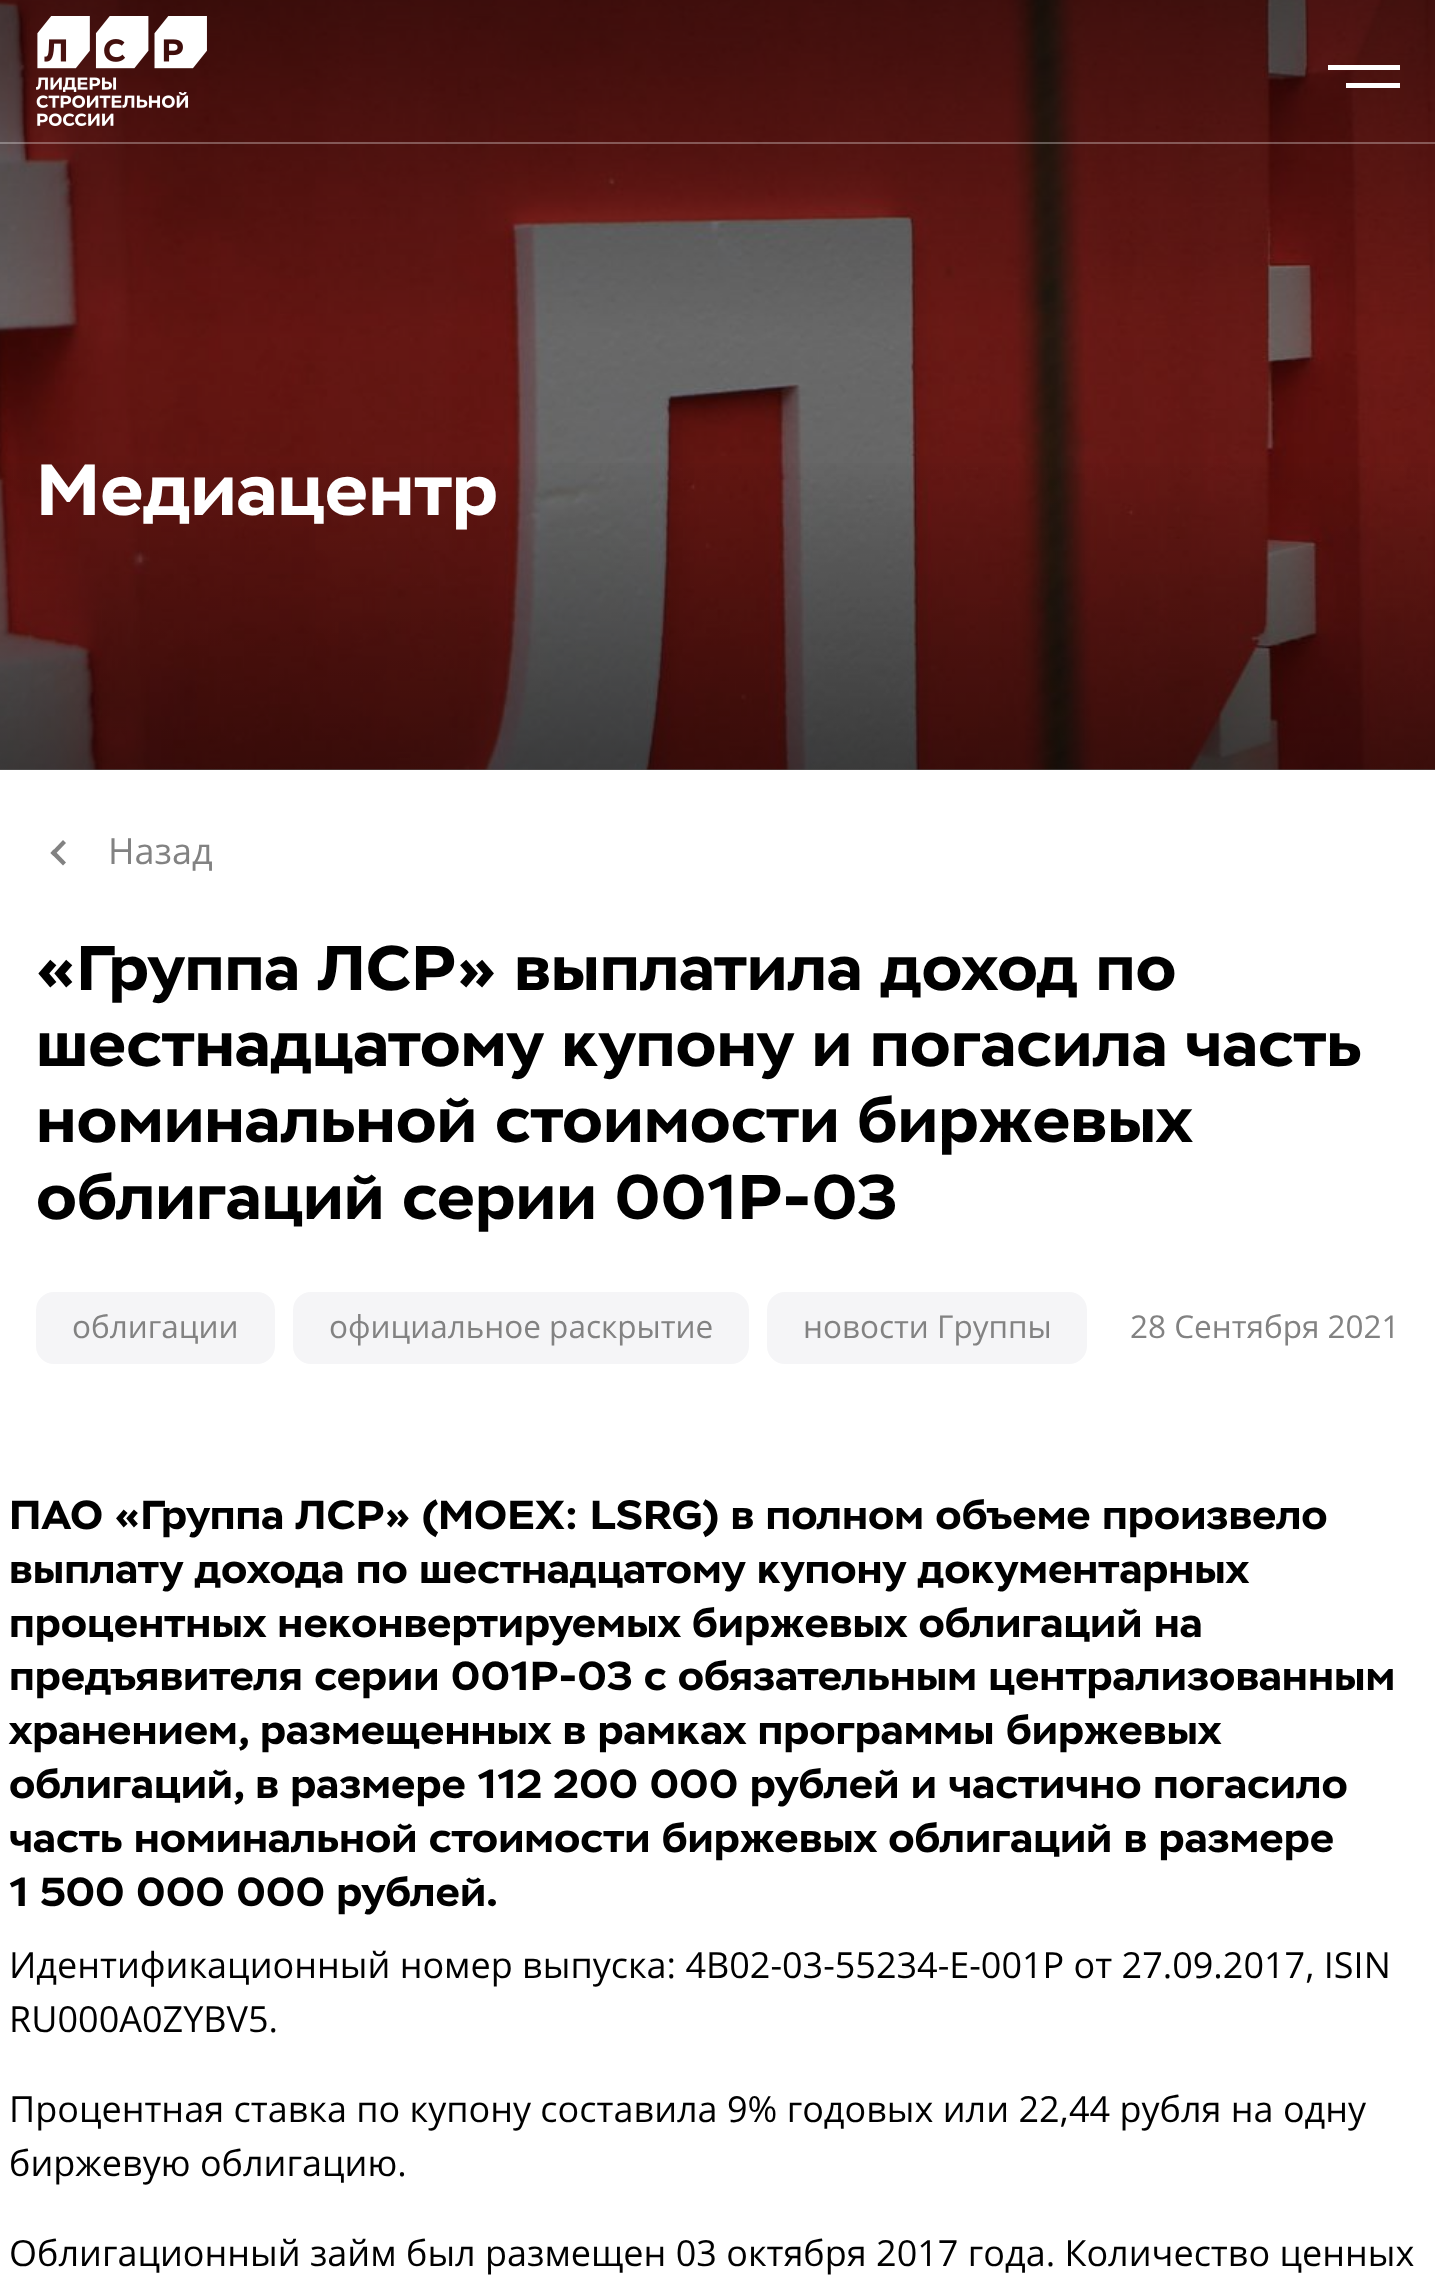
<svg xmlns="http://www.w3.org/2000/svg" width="1435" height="2296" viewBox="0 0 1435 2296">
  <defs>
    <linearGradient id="g1" gradientUnits="userSpaceOnUse" x1="718" y1="770" x2="718" y2="446"><stop offset="0" stop-color="#000000" stop-opacity="0.4"/><stop offset="1" stop-color="#000000" stop-opacity="0"/></linearGradient>
  </defs>
  <rect width="100%" height="100%" fill="#ffffff"/>
  <rect x="0" y="769" width="1435" height="1" fill="#999999"/>
  <image x="0" y="0" width="1435" height="770" href="img2.png"/>
  <rect x="0" y="142" width="1435" height="2" fill="#ffffff" fill-opacity="0.3"/>
  <image x="36" y="16" width="171" height="110" href="img1.png"/>
  <rect x="1328" y="65" width="72" height="5" fill="#ffffff"/>
  <rect x="1346" y="83" width="54" height="5" fill="#ffffff"/>
  <rect x="0" y="463" width="1435" height="307" fill="url(#g1)"/>
  <text x="36" y="515" font-family="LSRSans" font-size="72" font-weight="bold" fill="#ffffff">Медиацентр</text>
  <path d="M66 862.5L63 865.5L50.5 853L53.5 849.5Z" fill="#828282"/>
  <path d="M66 843L53.5 856L50.5 853L63 840Z" fill="#828282"/>
  <text x="108" y="864" font-family="Open Sans" font-size="36" fill="#828282">Назад</text>
  <text x="36" y="990" font-family="LSRSans" font-size="63" font-weight="bold" fill="#000000">«Группа ЛСР» выплатила доход по</text>
  <text x="36" y="1066" font-family="LSRSans" font-size="63" font-weight="bold" fill="#000000">шестнадцатому купону и погасила часть</text>
  <text x="36" y="1142" font-family="LSRSans" font-size="63" font-weight="bold" fill="#000000">номинальной стоимости биржевых</text>
  <text x="36" y="1219" font-family="LSRSans" font-size="63" font-weight="bold" fill="#000000">облигаций серии 001Р-03</text>
  <rect x="36" y="1292" width="239" height="72" rx="18" fill="#f5f5f7"/>
  <text x="72" y="1338" font-family="Open Sans" font-size="31.5" fill="#828282">облигации</text>
  <rect x="293" y="1292" width="456" height="72" rx="18" fill="#f5f5f7"/>
  <text x="329" y="1338" font-family="Open Sans" font-size="31.5" fill="#828282">официальное раскрытие</text>
  <rect x="767" y="1292" width="320" height="72" rx="18" fill="#f5f5f7"/>
  <text x="803" y="1338" font-family="Open Sans" font-size="31.5" fill="#828282">новости Группы</text>
  <text x="1130" y="1338" font-family="Open Sans" font-size="31.5" fill="#828282">28 Сентября 2021</text>
  <text x="9" y="1529" font-family="LSRSans" font-size="40.5" font-weight="bold" fill="#000000">ПАО «Группа ЛСР» (MOEX: LSRG) в полном объеме произвело</text>
  <text x="9" y="1583" font-family="LSRSans" font-size="40.5" font-weight="bold" fill="#000000">выплату дохода по шестнадцатому купону документарных</text>
  <text x="9" y="1637" font-family="LSRSans" font-size="40.5" font-weight="bold" fill="#000000">процентных неконвертируемых биржевых облигаций на</text>
  <text x="9" y="1690" font-family="LSRSans" font-size="40.5" font-weight="bold" fill="#000000">предъявителя серии 001P-03 с обязательным централизованным</text>
  <text x="9" y="1744" font-family="LSRSans" font-size="40.5" font-weight="bold" fill="#000000">хранением, размещенных в рамках программы биржевых</text>
  <text x="9" y="1798" font-family="LSRSans" font-size="40.5" font-weight="bold" fill="#000000">облигаций, в размере 112 200 000 рублей и частично погасило</text>
  <text x="9" y="1852" font-family="LSRSans" font-size="40.5" font-weight="bold" fill="#000000">часть номинальной стоимости биржевых облигаций в размере</text>
  <text x="9" y="1906" font-family="LSRSans" font-size="40.5" font-weight="bold" fill="#000000">1 500 000 000 рублей.</text>
  <text x="9" y="1978" font-family="Open Sans" font-size="36" fill="#000000">Идентификационный номер выпуска: 4B02-03-55234-E-001P от 27.09.2017, ISIN</text>
  <text x="9" y="2032" font-family="Open Sans" font-size="36" fill="#000000">RU000A0ZYBV5.</text>
  <text x="9" y="2122" font-family="Open Sans" font-size="36" fill="#000000">Процентная ставка по купону составила 9% годовых или 22,44 рубля на одну</text>
  <text x="9" y="2176" font-family="Open Sans" font-size="36" fill="#000000">биржевую облигацию.</text>
  <text x="9" y="2266" font-family="Open Sans" font-size="36" fill="#000000">Облигационный займ был размещен 03 октября 2017 года. Количество ценных</text>
</svg>
